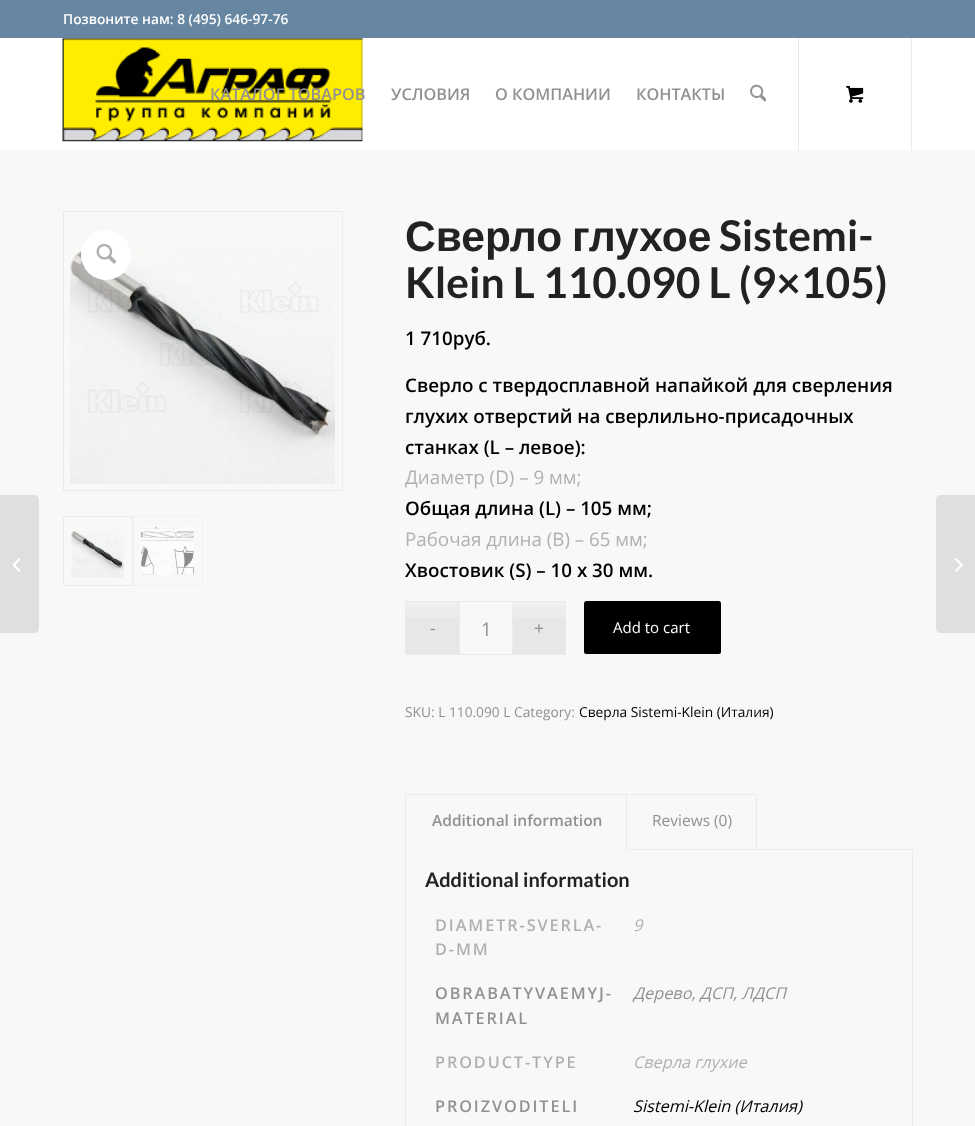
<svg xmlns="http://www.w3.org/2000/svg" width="975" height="1126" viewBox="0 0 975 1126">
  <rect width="100%" height="100%" fill="#f8f8f8"/>
  <rect x="0" y="0" width="975" height="38" fill="#6786a1"/>
  <text x="63" y="24" font-family="Open Sans" font-size="13.75" font-weight="600" fill="#ffffff">Позвоните нам: 8 (495) 646-97-76</text>
  <rect x="0" y="38" width="975" height="112" fill="#ffffff"/>
  <image x="62" y="38" width="301" height="104" href="img1.png"/>
  <text x="210" y="100" font-family="Open Sans" font-size="16.25" font-weight="600" fill="#919191">КАТАЛОГ ТОВАРОВ</text>
  <text x="391" y="100" font-family="Open Sans" font-size="16.25" font-weight="600" fill="#919191">УСЛОВИЯ</text>
  <text x="495" y="100" font-family="Open Sans" font-size="16.25" font-weight="600" fill="#919191">О КОМПАНИИ</text>
  <text x="636" y="100" font-family="Open Sans" font-size="16.25" font-weight="600" fill="#919191">КОНТАКТЫ</text>
  <image x="750" y="84" width="16" height="18" href="img2.png"/>
  <rect x="911" y="38" width="1" height="113" fill="#ebebeb"/>
  <rect x="798" y="38" width="1" height="113" fill="#ebebeb"/>
  <image x="846" y="85" width="18" height="18" href="img3.png"/>
  <path d="M0 495H34C37 495 39 497 39 500V628C39 631 37 633 34 633H0Z" fill="#dfdfdf"/>
  <image x="13" y="558" width="7" height="14" href="img4.png"/>
  <rect x="63.5" y="211.5" width="279" height="279" fill="none" stroke="#ebebeb"/>
  <image x="70" y="249" width="265" height="235" href="img5.png"/>
  <rect x="63.5" y="516.5" width="69" height="69" fill="none" stroke="#ebebeb"/>
  <image x="71" y="531" width="53" height="47" href="img6.png"/>
  <rect x="133.5" y="516.5" width="69" height="69" fill="none" stroke="#f2f2f2"/>
  <image x="141" y="526" width="53" height="49" href="img7.png"/>
  <circle cx="106" cy="255" r="25" fill="#ffffff"/>
  <image x="96" y="243" width="21" height="21" href="img8.png"/>
  <text x="405" y="251" word-spacing="-2" font-family="Liberation Sans" font-size="42.5" font-weight="bold" fill="#222222">Сверло глухое</text>
  <text x="719" y="251" font-family="Lato" font-size="42.5" font-weight="bold" fill="#222222">Sistemi-</text>
  <text x="405" y="298" font-family="Lato" font-size="42.5" font-weight="bold" fill="#222222">Klein L 110.090 L (9×105)</text>
  <text x="405" y="345" font-family="Open Sans" font-size="18.75" font-weight="600" fill="#000000">1 710руб.</text>
  <text x="405" y="392" font-family="Open Sans" font-size="18.75" font-weight="600" fill="#000000">Сверло с твердосплавной напайкой для сверления</text>
  <text x="405" y="423" font-family="Open Sans" font-size="18.75" font-weight="600" fill="#000000">глухих отверстий на сверлильно-присадочных</text>
  <text x="405" y="454" font-family="Open Sans" font-size="18.75" font-weight="600" fill="#000000">станках (L – левое):</text>
  <text x="405" y="484" font-family="Open Sans" font-size="18.75" fill="#b0b0b0">Диаметр (D) – 9 мм;</text>
  <text x="405" y="515" font-family="Open Sans" font-size="18.75" font-weight="600" fill="#000000">Общая длина (L) – 105 мм;</text>
  <text x="405" y="546" font-family="Open Sans" font-size="18.75" fill="#b0b0b0">Рабочая длина (B) – 65 мм;</text>
  <text x="405" y="577" font-family="Open Sans" font-size="18.75" font-weight="600" fill="#000000">Хвостовик (S) – 10 x 30 мм.</text>
  <rect x="406" y="602" width="53" height="52" fill="#e7e7e7"/>
  <image x="406" y="602" width="53" height="16" href="img9.png"/>
  <rect x="459.5" y="601.5" width="53" height="53" fill="none" stroke="#ebebeb"/>
  <rect x="513" y="602" width="52" height="52" fill="#e7e7e7"/>
  <image x="512" y="602" width="53" height="16" href="img10.png"/>
  <text x="430" y="634" font-family="Liberation Sans" font-size="17" fill="#919191">-</text>
  <rect x="405" y="601" width="54" height="1" fill="#ebebeb"/>
  <rect x="405" y="654" width="54" height="1" fill="#ebebeb"/>
  <rect x="405" y="601" width="1" height="54" fill="#ebebeb"/>
  <text x="481" y="636" font-family="Open Sans" font-size="18.75" fill="#919191">1</text>
  <text x="534" y="634" font-family="Liberation Sans" font-size="17" fill="#919191">+</text>
  <rect x="513" y="601" width="53" height="1" fill="#ebebeb"/>
  <rect x="565" y="601" width="1" height="54" fill="#ebebeb"/>
  <rect x="513" y="654" width="53" height="1" fill="#ebebeb"/>
  <rect x="584" y="601" width="137" height="53" rx="2.5" fill="#000000"/>
  <text x="613" y="633" font-family="Open Sans" font-size="15" fill="#ffffff">Add to cart</text>
  <text x="405" y="717" font-family="Open Sans" font-size="13.75" fill="#919191">SKU: L 110.090 L Category:</text>
  <text x="579" y="717" font-family="Open Sans" font-size="13.75" fill="#000000">Сверла Sistemi-Klein (Италия)</text>
  <rect x="626" y="794" width="130" height="1" fill="#ebebeb"/>
  <rect x="405.5" y="849.5" width="507" height="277" fill="none" stroke="#ebebeb"/>
  <rect x="405" y="794" width="223" height="56" fill="#f8f8f8"/>
  <rect x="406" y="794" width="222" height="1" fill="#ebebeb"/>
  <rect x="626" y="794" width="1" height="56" fill="#ebebeb"/>
  <rect x="405" y="795" width="1" height="55" fill="#ebebeb"/>
  <text x="432" y="826" font-family="Open Sans" font-size="15.5" font-weight="600" fill="#919191">Additional information</text>
  <rect x="756" y="795" width="1" height="55" fill="#ebebeb"/>
  <text x="652" y="826" font-family="Open Sans" font-size="15.5" fill="#919191">Reviews (0)</text>
  <text x="425" y="887" font-family="Lato" font-size="20" font-weight="bold" fill="#222222">Additional information</text>
  <text x="435" y="931" font-family="Open Sans" font-size="16.25" font-weight="600" letter-spacing="1.9" fill="#b0b0b0">DIAMETR-SVERLA-</text>
  <text x="435" y="955" font-family="Open Sans" font-size="16.25" font-weight="600" letter-spacing="1.9" fill="#b0b0b0">D-MM</text>
  <text x="633" y="931" font-family="Open Sans" font-size="16.25" font-style="italic" fill="#b0b0b0">9</text>
  <text x="435" y="999" font-family="Open Sans" font-size="16.25" font-weight="600" letter-spacing="1.9" fill="#919191">OBRABATYVAEMYJ-</text>
  <text x="435" y="1024" font-family="Open Sans" font-size="16.25" font-weight="600" letter-spacing="1.9" fill="#919191">MATERIAL</text>
  <text x="633" y="999" font-family="Open Sans" font-size="16.25" font-style="italic" fill="#919191">Дерево, ДСП, ЛДСП</text>
  <text x="435" y="1068" font-family="Open Sans" font-size="16.25" font-weight="600" letter-spacing="1.9" fill="#b0b0b0">PRODUCT-TYPE</text>
  <text x="633" y="1068" font-family="Open Sans" font-size="16.25" font-style="italic" fill="#b0b0b0">Сверла глухие</text>
  <text x="435" y="1112" font-family="Open Sans" font-size="16.25" font-weight="600" letter-spacing="1.9" fill="#919191">PROIZVODITELI</text>
  <text x="633" y="1112" font-family="Open Sans" font-size="16.25" font-style="italic" fill="#000000">Sistemi-Klein (Италия)</text>
  <path d="M941 495H975V633H941C938 633 936 631 936 628V500C936 497 938 495 941 495Z" fill="#dfdfdf"/>
  <image x="955" y="558" width="8" height="14" href="img11.png"/>
</svg>
